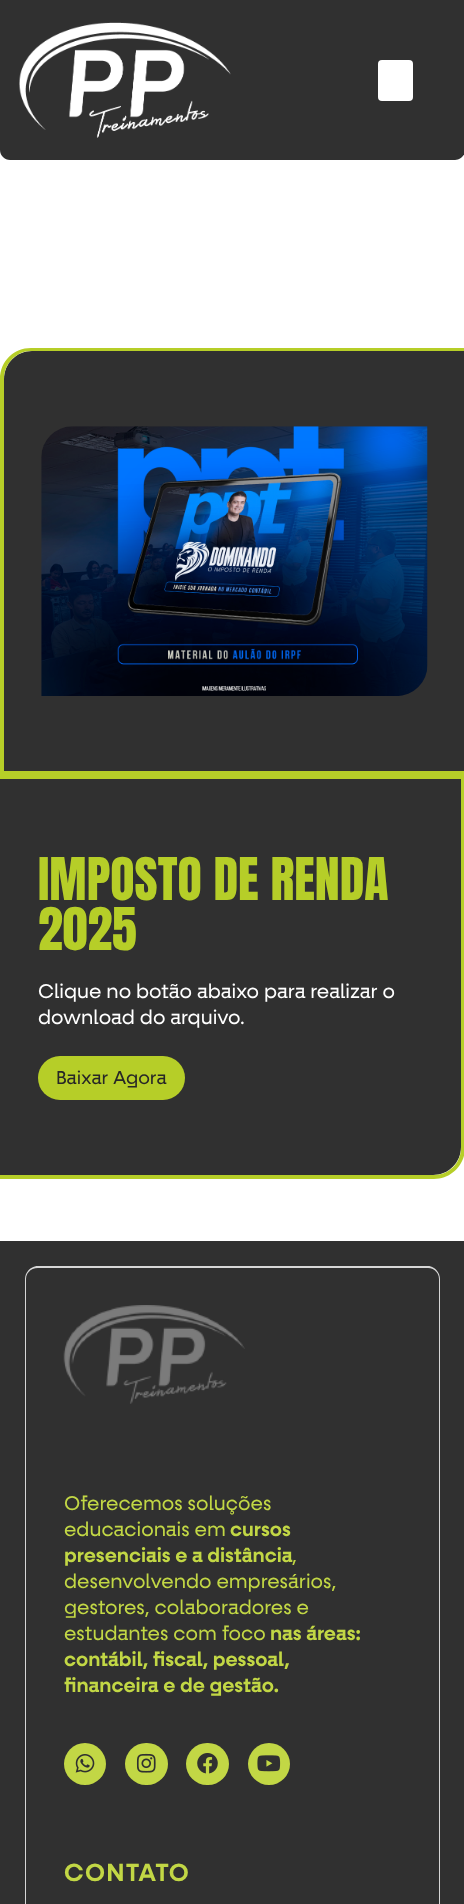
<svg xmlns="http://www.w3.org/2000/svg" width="464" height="1904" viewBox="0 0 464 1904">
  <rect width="100%" height="100%" fill="#ffffff"/>
  <path d="M0 0H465V150C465 155.5 460.5 160 455 160H10C4.5 160 0 155.5 0 150Z" fill="#303030"/>
  <image x="19" y="22" width="212" height="116" href="img1.png"/>
  <rect x="378" y="60" width="35" height="41" rx="4" fill="#ffffff"/>
  <path d="M32 351H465V771H4V379C4 363.5 16.5 351 32 351Z" fill="#303030"/>
  <path d="M31 348H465V775H0V379C0 361 14 348 31 348ZM31 351H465V771H4V379C4 364 16 351 31 351Z" fill="#b6ce28" fill-rule="evenodd"/>
  <image x="41" y="426" width="387" height="270" href="img2.png"/>
  <path d="M0 779H461V1147C461 1162.5 448.5 1175 433 1175H0Z" fill="#303030"/>
  <path d="M0 775H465V1148C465 1165 451 1179 434 1179H0ZM0 779H461V1148C461 1163 449 1175 434 1175H0Z" fill="#b6ce28" fill-rule="evenodd"/>
  <text x="38" y="900" font-family="Anton" font-size="50" fill="#b6ce28">IMPOSTO DE RENDA</text>
  <text x="38" y="950" font-family="Anton" font-size="50" fill="#b6ce28">2025</text>
  <text x="38" y="998" font-family="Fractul" font-size="20" fill="#ffffff">Clique no botão abaixo para realizar o</text>
  <text x="38" y="1024" font-family="Fractul" font-size="20" fill="#ffffff">download do arquivo.</text>
  <rect x="38" y="1056" width="147" height="44" rx="22" fill="#b6ce28"/>
  <text x="56" y="1084" font-family="Fractul" font-size="18.75" fill="#272727">Baixar Agora</text>
  <rect x="0" y="1241" width="464" height="663" fill="#303030"/>
  <path d="M38 1266H428C434 1266 440 1272 440 1279V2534H25V1279C25 1272 31 1266 38 1266ZM38 1268H428C434 1268 439 1273 439 1279V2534H26V1279C26 1273 31 1268 38 1268Z" fill="#d6d6d6" fill-rule="evenodd"/>
  <image x="63" y="1305" width="182" height="99" href="img3.png"/>
  <text x="64" y="1510" font-family="Fractul" font-size="20" fill="#c2d745">Oferecemos soluções</text>
  <text x="64" y="1536" font-family="Fractul" font-size="20" fill="#c2d745">educacionais em</text>
  <text x="230" y="1536" font-family="Fractul" font-size="20" font-weight="600" fill="#c2d745">cursos</text>
  <text x="64" y="1562" font-family="Fractul" font-size="20" font-weight="600" fill="#c2d745">presenciais e a distância</text>
  <text x="292" y="1562" font-family="Fractul" font-size="20" fill="#c2d745">,</text>
  <text x="64" y="1588" font-family="Fractul" font-size="20" fill="#c2d745">desenvolvendo empresários,</text>
  <text x="64" y="1614" font-family="Fractul" font-size="20" fill="#c2d745">gestores, colaboradores e</text>
  <text x="64" y="1640" font-family="Fractul" font-size="20" fill="#c2d745">estudantes com foco</text>
  <text x="270" y="1640" font-family="Fractul" font-size="20" font-weight="600" fill="#c2d745">nas áreas:</text>
  <text x="64" y="1666" font-family="Fractul" font-size="20" font-weight="600" fill="#c2d745">contábil, fiscal, pessoal,</text>
  <text x="64" y="1692" font-family="Fractul" font-size="20" font-weight="600" fill="#c2d745">financeira e de gestão.</text>
  <circle cx="85" cy="1764" r="21" fill="#c2d745"/>
  <image x="75" y="1754" width="20" height="19" href="img4.png"/>
  <rect x="125" y="1743" width="43" height="42" rx="21" fill="#c2d745"/>
  <image x="136" y="1753" width="20" height="20" href="img5.png"/>
  <rect x="186" y="1743" width="43" height="42" rx="21" fill="#c2d745"/>
  <image x="197" y="1753" width="21" height="21" href="img6.png"/>
  <circle cx="269" cy="1764" r="21" fill="#c2d745"/>
  <image x="257" y="1755" width="24" height="17" href="img7.png"/>
  <text x="64" y="1881" font-family="Fractul" font-size="25" font-weight="600" letter-spacing="1.25" fill="#c2d745">CONTATO</text>
</svg>
